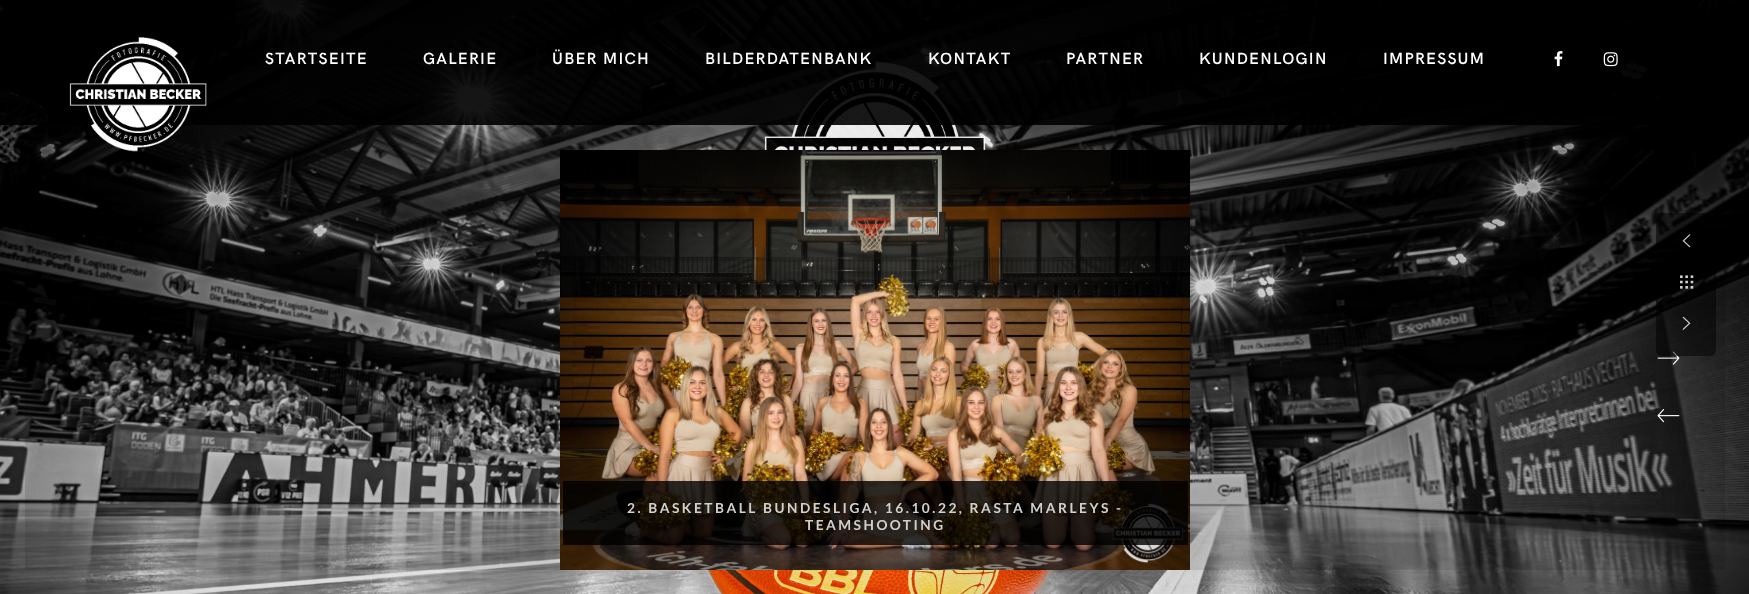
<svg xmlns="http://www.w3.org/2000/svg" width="1749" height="594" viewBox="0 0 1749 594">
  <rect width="100%" height="100%" fill="#ffffff"/>
  <image x="0" y="0" width="1749" height="594" href="img1.png"/>
  <rect x="0" y="0" width="1749" height="125" fill="#000000" fill-opacity="0.9"/>
  <rect x="25" y="150" width="1700" height="420" fill="#000000" fill-opacity="0.1"/>
  <image x="69" y="37" width="138" height="115" href="img2.png"/>
  <text x="265" y="64" font-family="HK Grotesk" font-size="16.25" font-weight="600" letter-spacing="1.25" fill="#ffffff">STARTSEITE</text>
  <text x="423" y="64" font-family="HK Grotesk" font-size="16.25" font-weight="600" letter-spacing="1.25" fill="#ffffff">GALERIE</text>
  <text x="552" y="64" font-family="HK Grotesk" font-size="16.25" font-weight="600" letter-spacing="1.25" fill="#ffffff">ÜBER MICH</text>
  <text x="705" y="64" font-family="HK Grotesk" font-size="16.25" font-weight="600" letter-spacing="1.25" fill="#ffffff">BILDERDATENBANK</text>
  <text x="928" y="64" font-family="HK Grotesk" font-size="16.25" font-weight="600" letter-spacing="1.25" fill="#ffffff">KONTAKT</text>
  <text x="1066" y="64" font-family="HK Grotesk" font-size="16.25" font-weight="600" letter-spacing="1.25" fill="#ffffff">PARTNER</text>
  <text x="1199" y="64" font-family="HK Grotesk" font-size="16.25" font-weight="600" letter-spacing="1.25" fill="#ffffff">KUNDENLOGIN</text>
  <text x="1383" y="64" font-family="HK Grotesk" font-size="16.25" font-weight="600" letter-spacing="1.25" fill="#ffffff">IMPRESSUM</text>
  <image x="1554" y="51" width="9" height="16" href="img3.png"/>
  <image x="1603" y="52" width="15" height="15" href="img4.png"/>
  <image x="1657" y="351" width="23" height="14" href="img8.png"/>
  <rect x="1656" y="213" width="60" height="143" rx="6" fill="#000000" fill-opacity="0.5"/>
  <image x="1682" y="234" width="9" height="14" href="img5.png"/>
  <image x="1680" y="275" width="14" height="14" href="img6.png"/>
  <image x="1682" y="316" width="9" height="14" href="img7.png"/>
  <image x="1657" y="409" width="23" height="14" href="img9.png"/>
  <image x="560" y="150" width="630" height="420" href="img10.png"/>
  <rect x="563" y="481" width="625" height="64" fill="#000000" fill-opacity="0.8"/>
  <text x="627" y="513" font-family="Lato" font-size="13.75" font-weight="bold" letter-spacing="2.5" fill="#d1d0ce">2. BASKETBALL BUNDESLIGA, 16.10.22, RASTA MARLEYS -</text>
  <text x="805" y="530" font-family="Lato" font-size="13.75" font-weight="bold" letter-spacing="2.5" fill="#d1d0ce">TEAMSHOOTING</text>
</svg>
